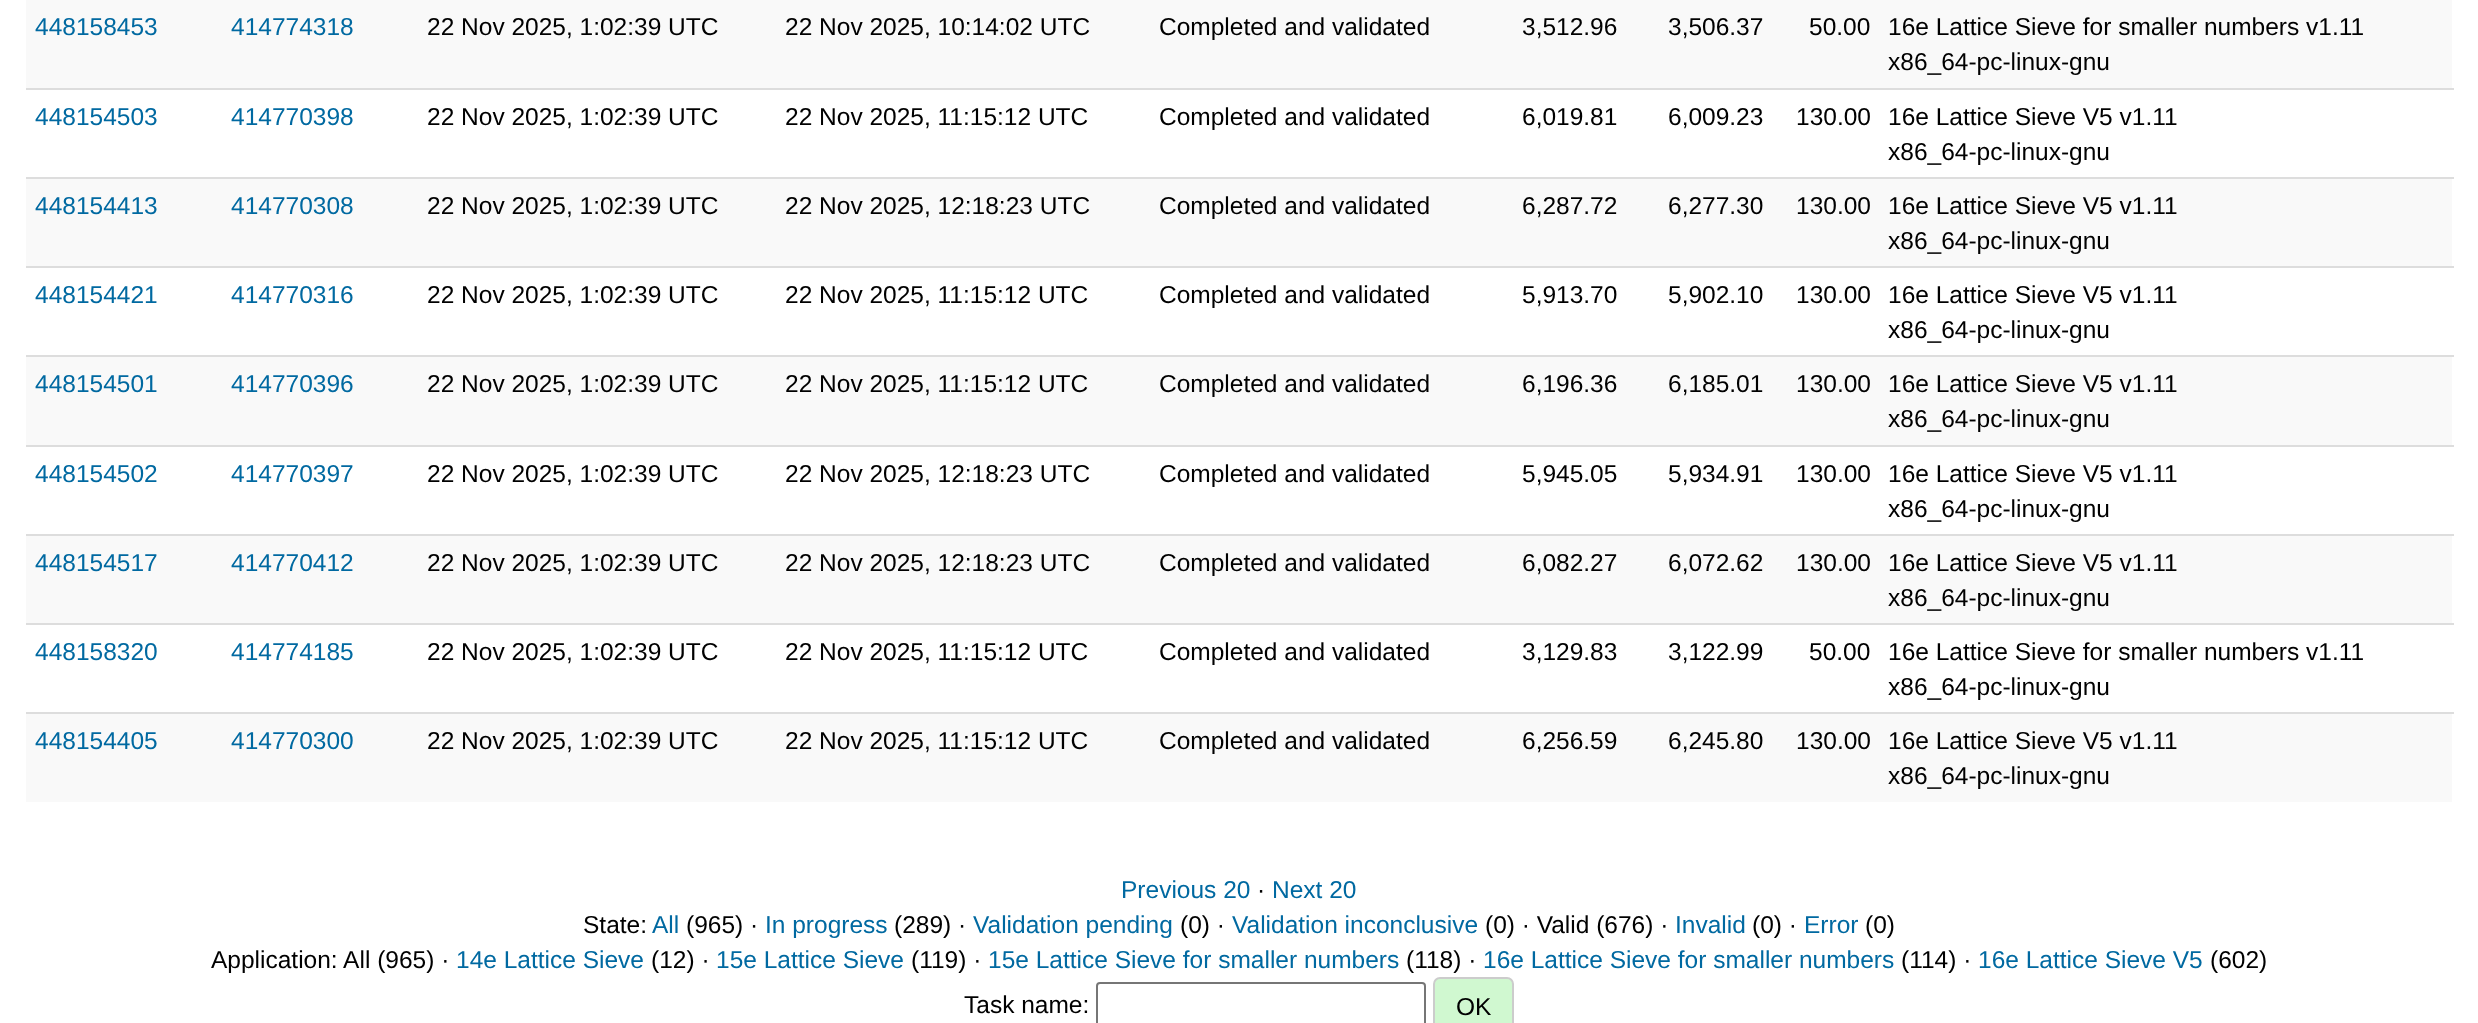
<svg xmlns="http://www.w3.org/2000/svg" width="2478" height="1023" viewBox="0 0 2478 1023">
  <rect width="100%" height="100%" fill="#ffffff"/>
  <rect x="26" y="0" width="2426" height="88" fill="#f9f9f9"/>
  <text x="35" y="35" font-family="Liberation Sans" font-size="24.5" fill="#0069a1">448158453</text>
  <text x="231" y="35" font-family="Liberation Sans" font-size="24.5" fill="#0069a1">414774318</text>
  <text x="427" y="35" font-family="Liberation Sans" font-size="24.5" fill="#000000">22 Nov 2025, 1:02:39 UTC</text>
  <text x="785" y="35" font-family="Liberation Sans" font-size="24.5" fill="#000000">22 Nov 2025, 10:14:02 UTC</text>
  <text x="1159" y="35" font-family="Liberation Sans" font-size="24.5" fill="#000000">Completed and validated</text>
  <text x="1522" y="35" font-family="Liberation Sans" font-size="24.5" fill="#000000">3,512.96</text>
  <text x="1668" y="35" font-family="Liberation Sans" font-size="24.5" fill="#000000">3,506.37</text>
  <text x="1809" y="35" font-family="Liberation Sans" font-size="24.5" fill="#000000">50.00</text>
  <text x="1888" y="35" font-family="Liberation Sans" font-size="24.5" fill="#000000">16e Lattice Sieve for smaller numbers v1.11</text>
  <text x="1888" y="70" font-family="Liberation Sans" font-size="24.5" fill="#000000">x86_64-pc-linux-gnu</text>
  <text x="35" y="125" font-family="Liberation Sans" font-size="24.5" fill="#0069a1">448154503</text>
  <text x="231" y="125" font-family="Liberation Sans" font-size="24.5" fill="#0069a1">414770398</text>
  <text x="427" y="125" font-family="Liberation Sans" font-size="24.5" fill="#000000">22 Nov 2025, 1:02:39 UTC</text>
  <text x="785" y="125" font-family="Liberation Sans" font-size="24.5" fill="#000000">22 Nov 2025, 11:15:12 UTC</text>
  <text x="1159" y="125" font-family="Liberation Sans" font-size="24.5" fill="#000000">Completed and validated</text>
  <text x="1522" y="125" font-family="Liberation Sans" font-size="24.5" fill="#000000">6,019.81</text>
  <text x="1668" y="125" font-family="Liberation Sans" font-size="24.5" fill="#000000">6,009.23</text>
  <text x="1796" y="125" font-family="Liberation Sans" font-size="24.5" fill="#000000">130.00</text>
  <rect x="26" y="88" width="2428" height="2" fill="#dddddd"/>
  <text x="1888" y="125" font-family="Liberation Sans" font-size="24.5" fill="#000000">16e Lattice Sieve V5 v1.11</text>
  <text x="1888" y="160" font-family="Liberation Sans" font-size="24.5" fill="#000000">x86_64-pc-linux-gnu</text>
  <rect x="26" y="179" width="2426" height="87" fill="#f9f9f9"/>
  <text x="35" y="214" font-family="Liberation Sans" font-size="24.5" fill="#0069a1">448154413</text>
  <text x="231" y="214" font-family="Liberation Sans" font-size="24.5" fill="#0069a1">414770308</text>
  <text x="427" y="214" font-family="Liberation Sans" font-size="24.5" fill="#000000">22 Nov 2025, 1:02:39 UTC</text>
  <text x="785" y="214" font-family="Liberation Sans" font-size="24.5" fill="#000000">22 Nov 2025, 12:18:23 UTC</text>
  <text x="1159" y="214" font-family="Liberation Sans" font-size="24.5" fill="#000000">Completed and validated</text>
  <text x="1522" y="214" font-family="Liberation Sans" font-size="24.5" fill="#000000">6,287.72</text>
  <text x="1668" y="214" font-family="Liberation Sans" font-size="24.5" fill="#000000">6,277.30</text>
  <text x="1796" y="214" font-family="Liberation Sans" font-size="24.5" fill="#000000">130.00</text>
  <rect x="26" y="177" width="2428" height="2" fill="#dddddd"/>
  <text x="1888" y="214" font-family="Liberation Sans" font-size="24.5" fill="#000000">16e Lattice Sieve V5 v1.11</text>
  <text x="1888" y="249" font-family="Liberation Sans" font-size="24.5" fill="#000000">x86_64-pc-linux-gnu</text>
  <text x="35" y="303" font-family="Liberation Sans" font-size="24.5" fill="#0069a1">448154421</text>
  <text x="231" y="303" font-family="Liberation Sans" font-size="24.5" fill="#0069a1">414770316</text>
  <text x="427" y="303" font-family="Liberation Sans" font-size="24.5" fill="#000000">22 Nov 2025, 1:02:39 UTC</text>
  <text x="785" y="303" font-family="Liberation Sans" font-size="24.5" fill="#000000">22 Nov 2025, 11:15:12 UTC</text>
  <text x="1159" y="303" font-family="Liberation Sans" font-size="24.5" fill="#000000">Completed and validated</text>
  <text x="1522" y="303" font-family="Liberation Sans" font-size="24.5" fill="#000000">5,913.70</text>
  <text x="1668" y="303" font-family="Liberation Sans" font-size="24.5" fill="#000000">5,902.10</text>
  <text x="1796" y="303" font-family="Liberation Sans" font-size="24.5" fill="#000000">130.00</text>
  <rect x="26" y="266" width="2428" height="2" fill="#dddddd"/>
  <text x="1888" y="303" font-family="Liberation Sans" font-size="24.5" fill="#000000">16e Lattice Sieve V5 v1.11</text>
  <text x="1888" y="338" font-family="Liberation Sans" font-size="24.5" fill="#000000">x86_64-pc-linux-gnu</text>
  <rect x="26" y="357" width="2426" height="88" fill="#f9f9f9"/>
  <text x="35" y="392" font-family="Liberation Sans" font-size="24.5" fill="#0069a1">448154501</text>
  <text x="231" y="392" font-family="Liberation Sans" font-size="24.5" fill="#0069a1">414770396</text>
  <text x="427" y="392" font-family="Liberation Sans" font-size="24.5" fill="#000000">22 Nov 2025, 1:02:39 UTC</text>
  <text x="785" y="392" font-family="Liberation Sans" font-size="24.5" fill="#000000">22 Nov 2025, 11:15:12 UTC</text>
  <text x="1159" y="392" font-family="Liberation Sans" font-size="24.5" fill="#000000">Completed and validated</text>
  <text x="1522" y="392" font-family="Liberation Sans" font-size="24.5" fill="#000000">6,196.36</text>
  <text x="1668" y="392" font-family="Liberation Sans" font-size="24.5" fill="#000000">6,185.01</text>
  <text x="1796" y="392" font-family="Liberation Sans" font-size="24.5" fill="#000000">130.00</text>
  <rect x="26" y="355" width="2428" height="2" fill="#dddddd"/>
  <text x="1888" y="392" font-family="Liberation Sans" font-size="24.5" fill="#000000">16e Lattice Sieve V5 v1.11</text>
  <text x="1888" y="427" font-family="Liberation Sans" font-size="24.5" fill="#000000">x86_64-pc-linux-gnu</text>
  <text x="35" y="482" font-family="Liberation Sans" font-size="24.5" fill="#0069a1">448154502</text>
  <text x="231" y="482" font-family="Liberation Sans" font-size="24.5" fill="#0069a1">414770397</text>
  <text x="427" y="482" font-family="Liberation Sans" font-size="24.5" fill="#000000">22 Nov 2025, 1:02:39 UTC</text>
  <text x="785" y="482" font-family="Liberation Sans" font-size="24.5" fill="#000000">22 Nov 2025, 12:18:23 UTC</text>
  <text x="1159" y="482" font-family="Liberation Sans" font-size="24.5" fill="#000000">Completed and validated</text>
  <text x="1522" y="482" font-family="Liberation Sans" font-size="24.5" fill="#000000">5,945.05</text>
  <text x="1668" y="482" font-family="Liberation Sans" font-size="24.5" fill="#000000">5,934.91</text>
  <text x="1796" y="482" font-family="Liberation Sans" font-size="24.5" fill="#000000">130.00</text>
  <rect x="26" y="445" width="2428" height="2" fill="#dddddd"/>
  <text x="1888" y="482" font-family="Liberation Sans" font-size="24.5" fill="#000000">16e Lattice Sieve V5 v1.11</text>
  <text x="1888" y="517" font-family="Liberation Sans" font-size="24.5" fill="#000000">x86_64-pc-linux-gnu</text>
  <rect x="26" y="536" width="2426" height="87" fill="#f9f9f9"/>
  <text x="35" y="571" font-family="Liberation Sans" font-size="24.5" fill="#0069a1">448154517</text>
  <text x="231" y="571" font-family="Liberation Sans" font-size="24.5" fill="#0069a1">414770412</text>
  <text x="427" y="571" font-family="Liberation Sans" font-size="24.5" fill="#000000">22 Nov 2025, 1:02:39 UTC</text>
  <text x="785" y="571" font-family="Liberation Sans" font-size="24.5" fill="#000000">22 Nov 2025, 12:18:23 UTC</text>
  <text x="1159" y="571" font-family="Liberation Sans" font-size="24.5" fill="#000000">Completed and validated</text>
  <text x="1522" y="571" font-family="Liberation Sans" font-size="24.5" fill="#000000">6,082.27</text>
  <text x="1668" y="571" font-family="Liberation Sans" font-size="24.5" fill="#000000">6,072.62</text>
  <text x="1796" y="571" font-family="Liberation Sans" font-size="24.5" fill="#000000">130.00</text>
  <rect x="26" y="534" width="2428" height="2" fill="#dddddd"/>
  <text x="1888" y="571" font-family="Liberation Sans" font-size="24.5" fill="#000000">16e Lattice Sieve V5 v1.11</text>
  <text x="1888" y="606" font-family="Liberation Sans" font-size="24.5" fill="#000000">x86_64-pc-linux-gnu</text>
  <text x="35" y="660" font-family="Liberation Sans" font-size="24.5" fill="#0069a1">448158320</text>
  <text x="231" y="660" font-family="Liberation Sans" font-size="24.5" fill="#0069a1">414774185</text>
  <text x="427" y="660" font-family="Liberation Sans" font-size="24.5" fill="#000000">22 Nov 2025, 1:02:39 UTC</text>
  <text x="785" y="660" font-family="Liberation Sans" font-size="24.5" fill="#000000">22 Nov 2025, 11:15:12 UTC</text>
  <text x="1159" y="660" font-family="Liberation Sans" font-size="24.5" fill="#000000">Completed and validated</text>
  <text x="1522" y="660" font-family="Liberation Sans" font-size="24.5" fill="#000000">3,129.83</text>
  <text x="1668" y="660" font-family="Liberation Sans" font-size="24.5" fill="#000000">3,122.99</text>
  <text x="1809" y="660" font-family="Liberation Sans" font-size="24.5" fill="#000000">50.00</text>
  <rect x="26" y="623" width="2428" height="2" fill="#dddddd"/>
  <text x="1888" y="660" font-family="Liberation Sans" font-size="24.5" fill="#000000">16e Lattice Sieve for smaller numbers v1.11</text>
  <text x="1888" y="695" font-family="Liberation Sans" font-size="24.5" fill="#000000">x86_64-pc-linux-gnu</text>
  <rect x="26" y="714" width="2426" height="88" fill="#f9f9f9"/>
  <text x="35" y="749" font-family="Liberation Sans" font-size="24.5" fill="#0069a1">448154405</text>
  <text x="231" y="749" font-family="Liberation Sans" font-size="24.5" fill="#0069a1">414770300</text>
  <text x="427" y="749" font-family="Liberation Sans" font-size="24.5" fill="#000000">22 Nov 2025, 1:02:39 UTC</text>
  <text x="785" y="749" font-family="Liberation Sans" font-size="24.5" fill="#000000">22 Nov 2025, 11:15:12 UTC</text>
  <text x="1159" y="749" font-family="Liberation Sans" font-size="24.5" fill="#000000">Completed and validated</text>
  <text x="1522" y="749" font-family="Liberation Sans" font-size="24.5" fill="#000000">6,256.59</text>
  <text x="1668" y="749" font-family="Liberation Sans" font-size="24.5" fill="#000000">6,245.80</text>
  <text x="1796" y="749" font-family="Liberation Sans" font-size="24.5" fill="#000000">130.00</text>
  <rect x="26" y="712" width="2428" height="2" fill="#dddddd"/>
  <text x="1888" y="749" font-family="Liberation Sans" font-size="24.5" fill="#000000">16e Lattice Sieve V5 v1.11</text>
  <text x="1888" y="784" font-family="Liberation Sans" font-size="24.5" fill="#000000">x86_64-pc-linux-gnu</text>
  <text x="1121" y="898" font-family="Liberation Sans" font-size="24.5" fill="#0069a1">Previous 20</text>
  <text x="1257" y="898" font-family="Liberation Sans" font-size="24.5" fill="#000000">·</text>
  <text x="1272" y="898" font-family="Liberation Sans" font-size="24.5" fill="#0069a1">Next 20</text>
  <text x="583" y="933" font-family="Liberation Sans" font-size="24.5" fill="#000000">State:</text>
  <text x="652" y="933" font-family="Liberation Sans" font-size="24.5" fill="#0069a1">All</text>
  <text x="686" y="933" font-family="Liberation Sans" font-size="24.5" fill="#000000">(965) ·</text>
  <text x="765" y="933" font-family="Liberation Sans" font-size="24.5" fill="#0069a1">In progress</text>
  <text x="894" y="933" font-family="Liberation Sans" font-size="24.5" fill="#000000">(289) ·</text>
  <text x="973" y="933" font-family="Liberation Sans" font-size="24.5" fill="#0069a1">Validation pending</text>
  <text x="1180" y="933" font-family="Liberation Sans" font-size="24.5" fill="#000000">(0) ·</text>
  <text x="1232" y="933" font-family="Liberation Sans" font-size="24.5" fill="#0069a1">Validation inconclusive</text>
  <text x="1485" y="933" font-family="Liberation Sans" font-size="24.5" fill="#000000">(0) · Valid (676) ·</text>
  <text x="1675" y="933" font-family="Liberation Sans" font-size="24.5" fill="#0069a1">Invalid</text>
  <text x="1752" y="933" font-family="Liberation Sans" font-size="24.5" fill="#000000">(0) ·</text>
  <text x="1804" y="933" font-family="Liberation Sans" font-size="24.5" fill="#0069a1">Error</text>
  <text x="1865" y="933" font-family="Liberation Sans" font-size="24.5" fill="#000000">(0)</text>
  <text x="211" y="968" font-family="Liberation Sans" font-size="24.5" fill="#000000">Application: All (965) ·</text>
  <text x="456" y="968" font-family="Liberation Sans" font-size="24.5" fill="#0069a1">14e Lattice Sieve</text>
  <text x="651" y="968" font-family="Liberation Sans" font-size="24.5" fill="#000000">(12) ·</text>
  <text x="716" y="968" font-family="Liberation Sans" font-size="24.5" fill="#0069a1">15e Lattice Sieve</text>
  <text x="911" y="968" font-family="Liberation Sans" font-size="24.5" fill="#000000">(119) ·</text>
  <text x="988" y="968" font-family="Liberation Sans" font-size="24.5" fill="#0069a1">15e Lattice Sieve for smaller numbers</text>
  <text x="1406" y="968" font-family="Liberation Sans" font-size="24.5" fill="#000000">(118) ·</text>
  <text x="1483" y="968" font-family="Liberation Sans" font-size="24.5" fill="#0069a1">16e Lattice Sieve for smaller numbers</text>
  <text x="1901" y="968" font-family="Liberation Sans" font-size="24.5" fill="#000000">(114) ·</text>
  <text x="1978" y="968" font-family="Liberation Sans" font-size="24.5" fill="#0069a1">16e Lattice Sieve V5</text>
  <text x="2210" y="968" font-family="Liberation Sans" font-size="24.5" fill="#000000">(602)</text>
  <text x="964" y="1013" font-family="Liberation Sans" font-size="24.5" fill="#000000">Task name:</text>
  <rect x="1097" y="983" width="328" height="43" rx="3" fill="none" stroke="#767676" stroke-width="2"/>
  <rect x="1434" y="978" width="79" height="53" rx="6" fill="#d0f8d0" stroke="#cccccc" stroke-width="2"/>
  <text x="1456" y="1015" font-family="Liberation Sans" font-size="24.5" fill="#000000">OK</text>
</svg>
